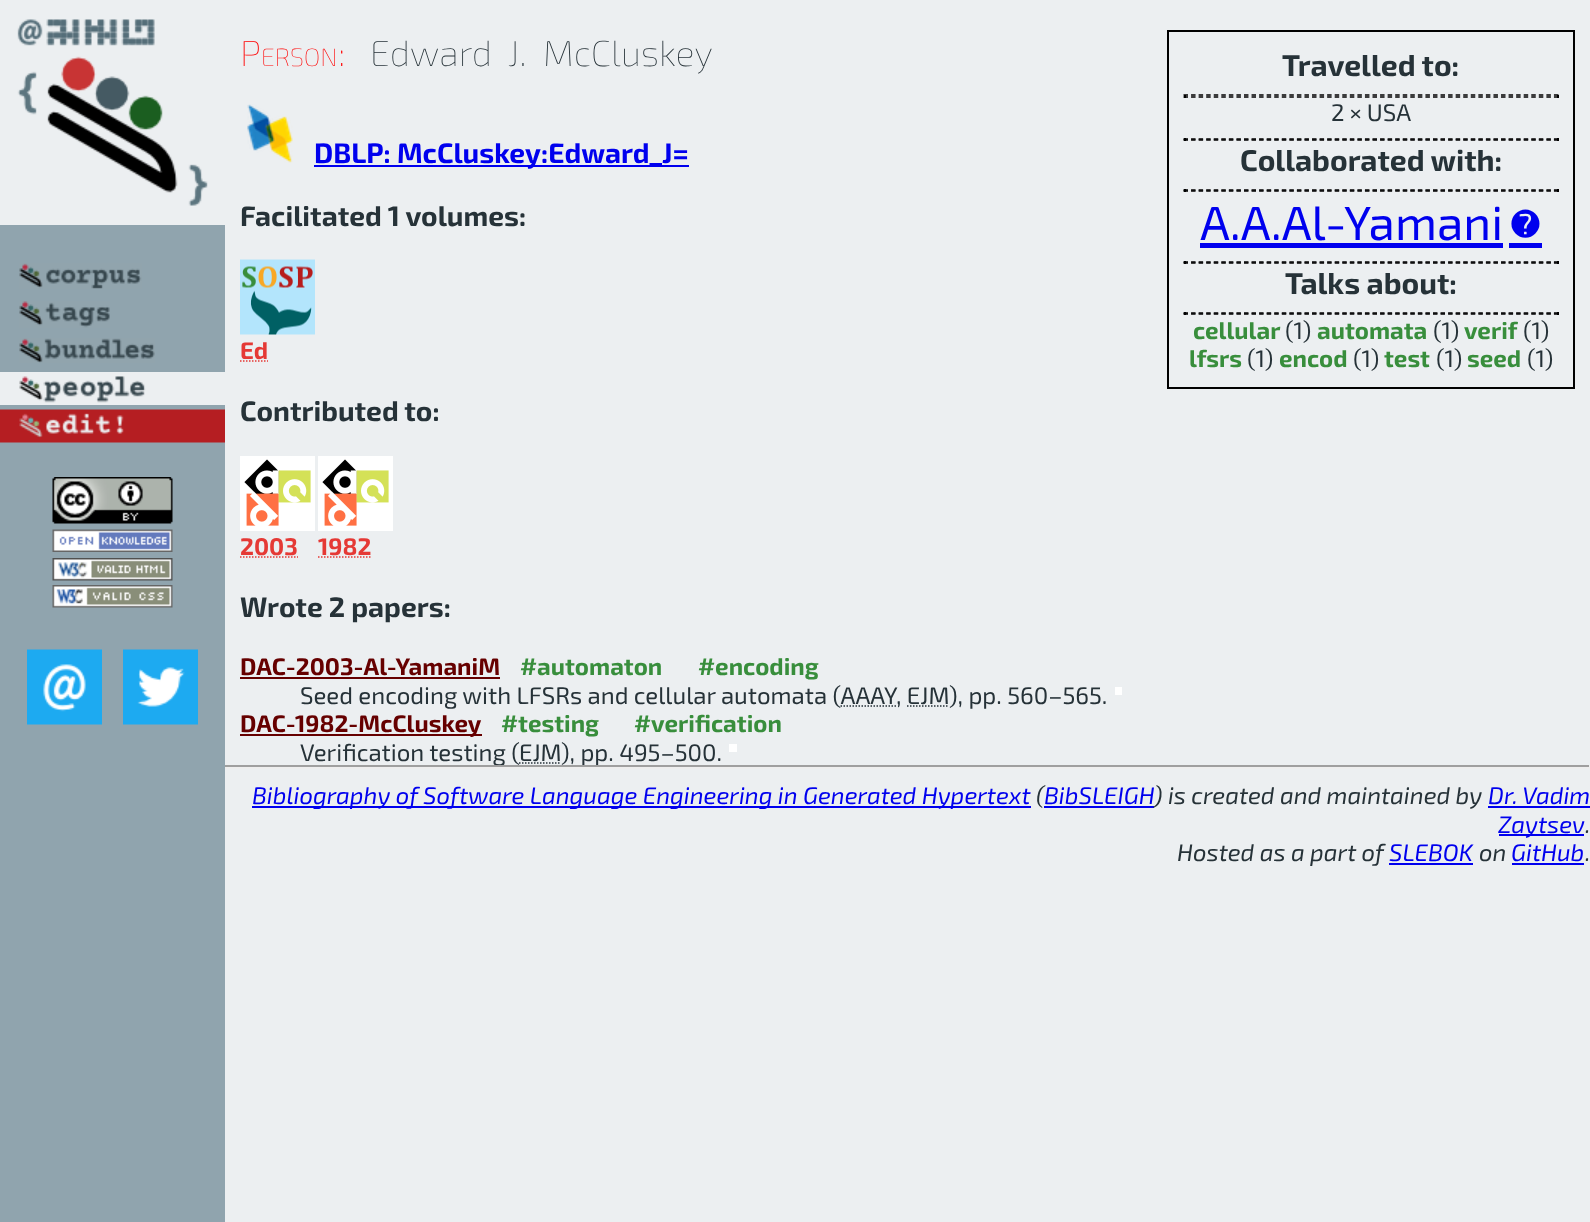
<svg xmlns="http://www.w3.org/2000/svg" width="1590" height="1222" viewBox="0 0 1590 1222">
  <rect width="100%" height="100%" fill="#eceff1"/>
  <rect x="0" y="225" width="225" height="997" fill="#90a4ae"/>
  <image x="0" y="0" width="225" height="225" href="img1.png"/>
  <image x="19" y="263" width="123" height="26" href="img2.png"/>
  <image x="19" y="301" width="91" height="27" href="img3.png"/>
  <image x="19" y="338" width="136" height="25" href="img4.png"/>
  <image x="0" y="372" width="225" height="33" href="img5.png"/>
  <image x="0" y="409" width="225" height="34" href="img6.png"/>
  <image x="52" y="477" width="121" height="47" href="img7.png"/>
  <image x="52" y="529" width="121" height="23" href="img8.png"/>
  <image x="52" y="558" width="121" height="23" href="img9.png"/>
  <image x="52" y="585" width="121" height="23" href="img10.png"/>
  <image x="27" y="649" width="75" height="76" href="img11.png"/>
  <image x="123" y="649" width="75" height="76" href="img12.png"/>
  <text x="240" y="66" font-family="'Exo 2'" font-size="36" font-weight="100" fill="#ff0000">P</text>
  <text x="261" y="66" font-family="'Exo 2'" font-size="25" font-weight="100" fill="#ff0000">ERSON</text>
  <text x="338" y="66" font-family="'Exo 2'" font-size="36" font-weight="100" fill="#ff0000">:</text>
  <text x="370" y="66" word-spacing="8" font-family="'Exo 2'" font-size="36" font-weight="100" fill="#263238">Edward J. McCluskey</text>
  <rect x="1168" y="31" width="406" height="357" fill="none" stroke="#000000" stroke-width="2"/>
  <text x="1282" y="76" font-family="'Exo 2'" font-size="30" font-weight="bold" fill="#263238">Travelled to:</text>
  <path d="M1183.5 95H1558.5" fill="none" stroke="#000000" stroke-width="1.5" stroke-dasharray="4.5 3.06"/>
  <rect x="1557" y="95" width="2" height="3" fill="#000000"/>
  <path d="M1183.5 97H1558.5" fill="none" stroke="#000000" stroke-width="1.5" stroke-dasharray="4.5 3.06"/>
  <rect x="1184" y="95" width="2" height="3" fill="#000000"/>
  <text x="1331" y="121" font-family="'Exo 2'" font-size="24" fill="#263238">2 × USA</text>
  <path d="M1183.5 139H1558.5" fill="none" stroke="#000000" stroke-width="1.5" stroke-dasharray="4.5 3.06"/>
  <rect x="1557" y="138" width="2" height="3" fill="#000000"/>
  <path d="M1183.5 140H1558.5" fill="none" stroke="#000000" stroke-width="1.5" stroke-dasharray="4.5 3.06"/>
  <rect x="1184" y="138" width="2" height="3" fill="#000000"/>
  <text x="1240" y="171" font-family="'Exo 2'" font-size="30" font-weight="bold" fill="#263238">Collaborated with:</text>
  <path d="M1183.5 190H1558.5" fill="none" stroke="#000000" stroke-width="1.5" stroke-dasharray="4.5 3.06"/>
  <rect x="1557" y="189" width="2" height="3" fill="#000000"/>
  <path d="M1183.5 191H1558.5" fill="none" stroke="#000000" stroke-width="1.5" stroke-dasharray="4.5 3.06"/>
  <rect x="1184" y="189" width="2" height="3" fill="#000000"/>
  <text x="1200" y="240" font-family="'Exo 2'" font-size="48" fill="#0000ee">A.A.Al-Yamani</text>
  <rect x="1200" y="243" width="303" height="5" fill="#0000ee"/>
  <text x="1509" y="240" font-family="'Exo 2'" font-size="48" fill="#0000ee">∅</text>
  <rect x="1509" y="243" width="33" height="5" fill="#0000ee"/>
  <path d="M1183.5 262H1558.5" fill="none" stroke="#000000" stroke-width="1.5" stroke-dasharray="4.5 3.06"/>
  <rect x="1557" y="261" width="2" height="3" fill="#000000"/>
  <path d="M1183.5 263H1558.5" fill="none" stroke="#000000" stroke-width="1.5" stroke-dasharray="4.5 3.06"/>
  <rect x="1184" y="261" width="2" height="3" fill="#000000"/>
  <text x="1285" y="294" font-family="'Exo 2'" font-size="30" font-weight="bold" fill="#263238">Talks about:</text>
  <path d="M1183.5 313H1558.5" fill="none" stroke="#000000" stroke-width="1.5" stroke-dasharray="4.5 3.06"/>
  <rect x="1557" y="312" width="2" height="3" fill="#000000"/>
  <path d="M1183.5 314H1558.5" fill="none" stroke="#000000" stroke-width="1.5" stroke-dasharray="4.5 3.06"/>
  <rect x="1184" y="312" width="2" height="3" fill="#000000"/>
  <text x="1193" y="339" font-family="'Exo 2'" font-size="24" font-weight="bold" fill="#388e3c">cellular</text>
  <text x="1285" y="339" font-family="'Exo 2'" font-size="24" fill="#263238">(1)</text>
  <text x="1317" y="339" font-family="'Exo 2'" font-size="24" font-weight="bold" fill="#388e3c">automata</text>
  <text x="1433" y="339" font-family="'Exo 2'" font-size="24" fill="#263238">(1)</text>
  <text x="1464" y="339" font-family="'Exo 2'" font-size="24" font-weight="bold" fill="#388e3c">verif</text>
  <text x="1523" y="339" font-family="'Exo 2'" font-size="24" fill="#263238">(1)</text>
  <text x="1189" y="367" font-family="'Exo 2'" font-size="24" font-weight="bold" fill="#388e3c">lfsrs</text>
  <text x="1247" y="367" font-family="'Exo 2'" font-size="24" fill="#263238">(1)</text>
  <text x="1279" y="367" font-family="'Exo 2'" font-size="24" font-weight="bold" fill="#388e3c">encod</text>
  <text x="1353" y="367" font-family="'Exo 2'" font-size="24" fill="#263238">(1)</text>
  <text x="1384" y="367" font-family="'Exo 2'" font-size="24" font-weight="bold" fill="#388e3c">test</text>
  <text x="1436" y="367" font-family="'Exo 2'" font-size="24" fill="#263238">(1)</text>
  <text x="1467" y="367" font-family="'Exo 2'" font-size="24" font-weight="bold" fill="#388e3c">seed</text>
  <text x="1527" y="367" font-family="'Exo 2'" font-size="24" fill="#263238">(1)</text>
  <image x="247" y="104" width="46" height="59" href="img13.png"/>
  <rect x="314" y="165" width="375" height="2" fill="#0000ee"/>
  <text x="314" y="163" font-family="'Exo 2'" font-size="28.1" font-weight="bold" fill="#0000ee">DBLP: McCluskey:Edward_J=</text>
  <text x="240" y="226" font-family="'Exo 2'" font-size="28.1" font-weight="bold" fill="#263238">Facilitated 1 volumes:</text>
  <image x="240" y="259" width="75" height="76" href="img14.png"/>
  <text x="240" y="359" font-family="'Exo 2'" font-size="24" font-weight="bold" fill="#e53935">Ed</text>
  <path d="M240 361H268" fill="none" stroke="#e53935" stroke-width="1.5" stroke-dasharray="1.5 1.5"/>
  <text x="240" y="421" font-family="'Exo 2'" font-size="28.1" font-weight="bold" fill="#263238">Contributed to:</text>
  <image x="240" y="456" width="75" height="75" href="img15.png"/>
  <text x="240" y="555" font-family="'Exo 2'" font-size="24" font-weight="bold" fill="#e53935">2003</text>
  <path d="M240 557H298" fill="none" stroke="#e53935" stroke-width="1.5" stroke-dasharray="1.5 1.5"/>
  <image x="318" y="456" width="75" height="75" href="img15.png"/>
  <text x="318" y="555" font-family="'Exo 2'" font-size="24" font-weight="bold" fill="#e53935">1982</text>
  <path d="M318 557H371.5" fill="none" stroke="#e53935" stroke-width="1.5" stroke-dasharray="1.5 1.5"/>
  <text x="240" y="617" font-family="'Exo 2'" font-size="28.1" font-weight="bold" fill="#263238">Wrote 2 papers:</text>
  <text x="240" y="675" font-family="'Exo 2'" font-size="24" font-weight="bold" fill="#660000">DAC-2003-Al-YamaniM</text>
  <rect x="240" y="677" width="260" height="2" fill="#660000"/>
  <text x="520" y="675" font-family="'Exo 2'" font-size="24" font-weight="bold" fill="#388e3c">#automaton</text>
  <text x="698" y="675" font-family="'Exo 2'" font-size="24" font-weight="bold" fill="#388e3c">#encoding</text>
  <text x="300" y="704" font-family="'Exo 2'" font-size="24" fill="#263238">Seed encoding with LFSRs and cellular automata (AAAY</text>
  <text x="896" y="704" font-family="'Exo 2'" font-size="24" fill="#263238">, EJM</text>
  <text x="949" y="704" font-family="'Exo 2'" font-size="24" fill="#263238">), pp. 560–565.</text>
  <path d="M840.5 706H896" fill="none" stroke="#263238" stroke-width="1.5" stroke-dasharray="1.5 1.5"/>
  <path d="M907 706H949" fill="none" stroke="#263238" stroke-width="1.5" stroke-dasharray="1.5 1.5"/>
  <rect x="1115" y="687" width="7" height="8" fill="#ffffff"/>
  <rect x="240" y="734" width="242" height="2" fill="#660000"/>
  <text x="240" y="732" font-family="'Exo 2'" font-size="24" font-weight="bold" fill="#660000">DAC-1982-McCluskey</text>
  <text x="501" y="732" font-family="'Exo 2'" font-size="24" font-weight="bold" fill="#388e3c">#testing</text>
  <text x="634" y="732" font-family="'Exo 2'" font-size="24" font-weight="bold" fill="#388e3c">#verification</text>
  <text x="300" y="761" font-family="'Exo 2'" font-size="24" fill="#263238">Verification testing (</text>
  <text x="519" y="761" font-family="'Exo 2'" font-size="24" fill="#263238">EJM</text>
  <path d="M519 763H561" fill="none" stroke="#263238" stroke-width="1.5" stroke-dasharray="1.5 1.5"/>
  <text x="561" y="761" font-family="'Exo 2'" font-size="24" fill="#263238">), pp. 495–500.</text>
  <rect x="729" y="744" width="8" height="8" fill="#ffffff"/>
  <rect x="225" y="765" width="1365" height="2" fill="#9f9f9f"/>
  <rect x="1589" y="765" width="1" height="3" fill="#eeeeee"/>
  <rect x="225" y="767" width="1365" height="2" fill="#eeeeee"/>
  <rect x="252" y="806" width="779" height="2" fill="#0000ee"/>
  <text x="252" y="804" font-family="'Exo 2'" font-size="24" font-style="italic" fill="#0000ee">Bibliography of Software Language Engineering in Generated Hypertext</text>
  <text x="1036" y="804" font-family="'Exo 2'" font-size="24" font-style="italic" fill="#263238">(</text>
  <text x="1044" y="804" font-family="'Exo 2'" font-size="24" font-style="italic" fill="#0000ee">BibSLEIGH</text>
  <rect x="1044" y="806" width="110" height="2" fill="#0000ee"/>
  <text x="1154" y="804" font-family="'Exo 2'" font-size="24" font-style="italic" fill="#263238">) is created and maintained by</text>
  <text x="1488" y="804" font-family="'Exo 2'" font-size="24" font-style="italic" fill="#0000ee">Dr. Vadim</text>
  <rect x="1488" y="806" width="102" height="2" fill="#0000ee"/>
  <rect x="1499" y="834" width="85" height="2" fill="#0000ee"/>
  <text x="1498" y="833" font-family="'Exo 2'" font-size="24" font-style="italic" fill="#0000ee">Zaytsev</text>
  <text x="1585" y="833" font-family="'Exo 2'" font-size="24" font-style="italic" fill="#263238">.</text>
  <text x="1177" y="861" font-family="'Exo 2'" font-size="24" font-style="italic" fill="#263238">Hosted as a part of</text>
  <rect x="1389" y="863" width="84" height="2" fill="#0000ee"/>
  <text x="1389" y="861" font-family="'Exo 2'" font-size="24" font-style="italic" fill="#0000ee">SLEBOK</text>
  <text x="1479" y="861" font-family="'Exo 2'" font-size="24" font-style="italic" fill="#263238">on</text>
  <text x="1511" y="861" font-family="'Exo 2'" font-size="24" font-style="italic" fill="#0000ee">GitHub</text>
  <text x="1585" y="861" font-family="'Exo 2'" font-size="24" font-style="italic" fill="#263238">.</text>
  <rect x="1512" y="863" width="72" height="2" fill="#0000ee"/>
</svg>
